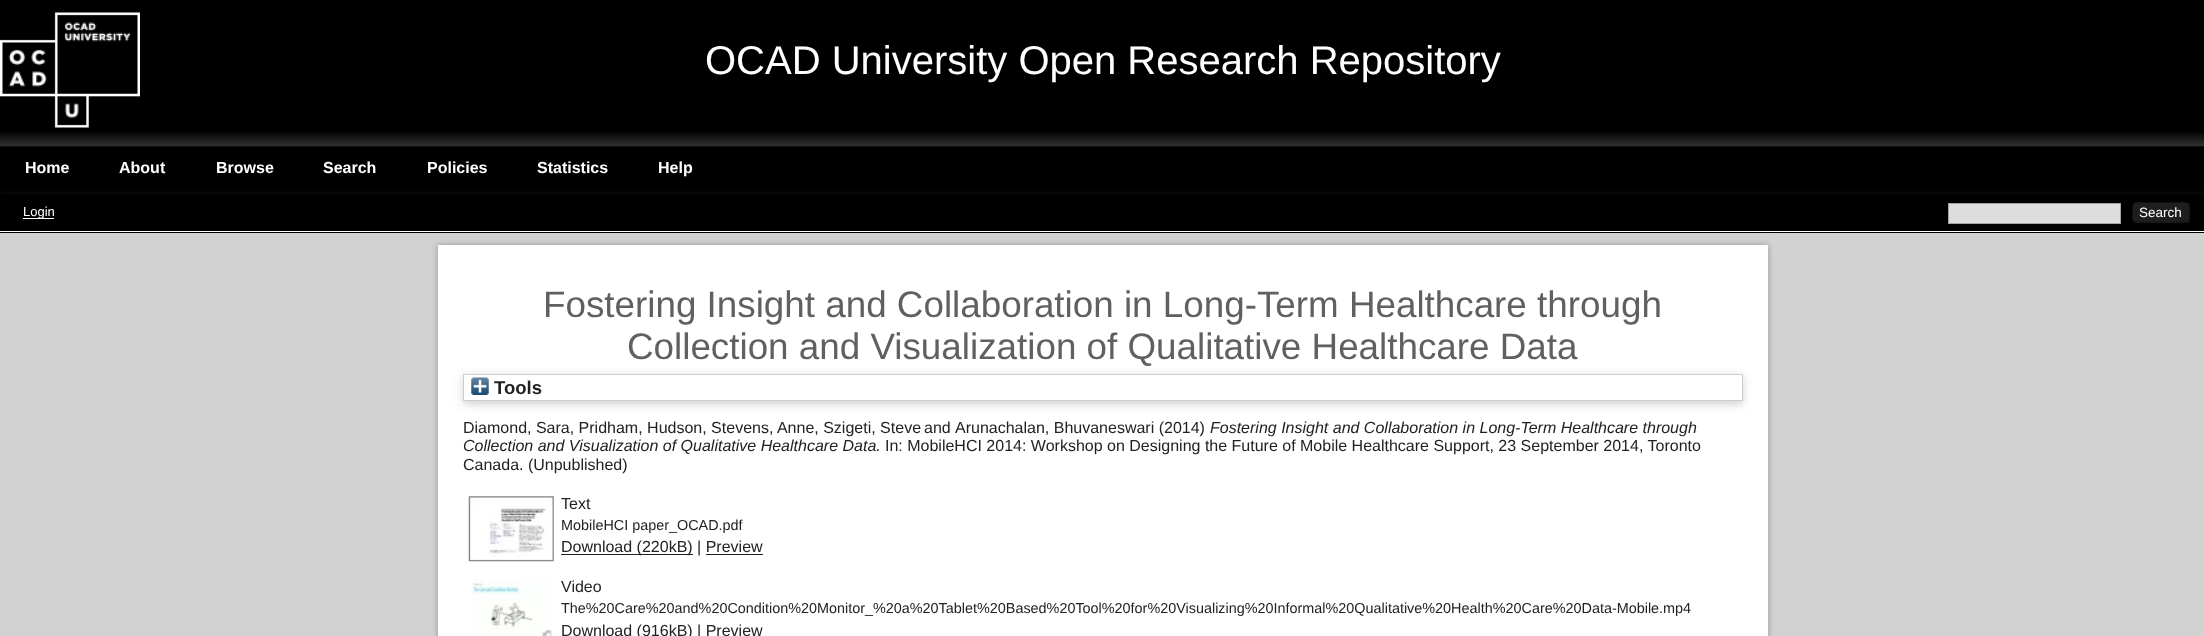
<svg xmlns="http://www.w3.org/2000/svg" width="2204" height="636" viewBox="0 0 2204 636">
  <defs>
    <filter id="blur1" x="-50%" y="-200%" width="200%" height="500%"><feGaussianBlur stdDeviation="4"/></filter>
    <filter id="blur2" x="-50%" y="-200%" width="200%" height="500%"><feGaussianBlur stdDeviation="3"/></filter>
  </defs>
  <rect width="100%" height="100%" fill="#000000"/>
  <image x="0" y="12" width="140" height="116" href="img1.png"/>
  <text x="705" y="74" font-family="Liberation Sans" font-size="40" fill="#ffffff">OCAD University Open Research Repository</text>
  <image x="0" y="132" width="2204" height="15" href="img2.png"/>
  <text x="25" y="173" font-family="Liberation Sans" font-size="16" font-weight="bold" fill="#ffffff">Home</text>
  <text x="119" y="173" font-family="Liberation Sans" font-size="16" font-weight="bold" fill="#ffffff">About</text>
  <text x="216" y="173" font-family="Liberation Sans" font-size="16" font-weight="bold" fill="#ffffff">Browse</text>
  <text x="323" y="173" font-family="Liberation Sans" font-size="16" font-weight="bold" fill="#ffffff">Search</text>
  <text x="427" y="173" font-family="Liberation Sans" font-size="16" font-weight="bold" fill="#ffffff">Policies</text>
  <text x="537" y="173" font-family="Liberation Sans" font-size="16" font-weight="bold" fill="#ffffff">Statistics</text>
  <text x="658" y="173" font-family="Liberation Sans" font-size="16" font-weight="bold" fill="#ffffff">Help</text>
  <rect x="0" y="196" width="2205" height="39" fill="#646464" fill-opacity="0.3" filter="url(#blur1)"/>
  <rect x="0" y="194" width="2204" height="39" fill="#000000"/>
  <rect x="0" y="231" width="2204" height="1" fill="#ffffff"/>
  <rect x="23" y="218" width="31" height="1" fill="#ffffff"/>
  <text x="23" y="216" font-family="Liberation Sans" font-size="13" fill="#ffffff">Login</text>
  <rect x="1948.5" y="203.5" width="172" height="20" fill="#dddddd" stroke="#a3a3a3"/>
  <rect x="2133" y="203" width="57" height="20" rx="4" fill="#1e1e1e"/>
  <path d="M2188.5 204C2190.5 206 2189.5 210 2189.5 212.5C2189.5 223.5 2189.5 222 2178 222H2144.5C2144 222 2136.5 223 2134 221" fill="none" stroke="#141414" stroke-width="1.2"/>
  <path d="M2134 221C2132 219 2133 215 2133 212.5C2133 201.5 2133 203 2144.5 203H2178C2178.5 203 2186 202 2188.5 204" fill="none" stroke="#1e1e1e" stroke-width="1.2"/>
  <text x="2139" y="217" font-family="Liberation Sans" font-size="13.5" fill="#ffffff">Search</text>
  <rect x="0" y="233" width="2204" height="403" fill="#d2d2d2"/>
  <rect x="438" y="245" width="1330" height="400" fill="#949494" filter="url(#blur2)"/>
  <rect x="438" y="245" width="1330" height="391" fill="#ffffff"/>
  <text x="543" y="317" font-family="Liberation Sans" font-size="36.8" fill="#606060">Fostering Insight and Collaboration in Long-Term Healthcare through</text>
  <rect x="463" y="376" width="1280" height="28" fill="#646464" fill-opacity="0.3" filter="url(#blur1)"/>
  <text x="627" y="359" font-family="Liberation Sans" font-size="36.8" fill="#606060">Collection and Visualization of Qualitative Healthcare Data</text>
  <rect x="463.5" y="374.5" width="1279" height="26" fill="#ffffff" stroke="#cccccc"/>
  <image x="471" y="377" width="18" height="18" href="img3.png"/>
  <text x="494" y="394" font-family="Liberation Sans" font-size="18.5" font-weight="bold" fill="#222222">Tools</text>
  <text x="463" y="433" font-family="Liberation Sans" font-size="16" fill="#222222">Diamond, Sara, Pridham, Hudson, Stevens, Anne, Szigeti, Steve</text>
  <text x="924" y="433" font-family="Liberation Sans" font-size="16" fill="#222222">and</text>
  <text x="955" y="433" font-family="Liberation Sans" font-size="16" fill="#222222">Arunachalan, Bhuvaneswari (2014)</text>
  <text x="1210" y="433" font-family="Liberation Sans" font-size="16" font-style="italic" fill="#222222">Fostering Insight and Collaboration in Long-Term Healthcare through</text>
  <text x="463" y="451" font-family="Liberation Sans" font-size="16" font-style="italic" fill="#222222">Collection and Visualization of Qualitative Healthcare Data.</text>
  <text x="885" y="451" font-family="Liberation Sans" font-size="16" fill="#222222">In: MobileHCI 2014: Workshop on Designing the Future of Mobile Healthcare Support, 23 September 2014, Toronto</text>
  <text x="463" y="470" font-family="Liberation Sans" font-size="16" fill="#222222">Canada. (Unpublished)</text>
  <image x="468" y="496" width="86" height="66" href="img4.png"/>
  <text x="561" y="509" font-family="Liberation Sans" font-size="16" fill="#222222">Text</text>
  <text x="561" y="530" font-family="Liberation Sans" font-size="14.4" fill="#222222">MobileHCI paper_OCAD.pdf</text>
  <rect x="561" y="554" width="132" height="1" fill="#222222"/>
  <text x="561" y="552" font-family="Liberation Sans" font-size="16" fill="#222222">Download (220kB) | Preview</text>
  <rect x="706" y="554" width="57" height="1" fill="#222222"/>
  <image x="471" y="580" width="81" height="56" href="img5.png"/>
  <text x="561" y="592" font-family="Liberation Sans" font-size="16" fill="#222222">Video</text>
  <text x="561" y="613" font-family="Liberation Sans" font-size="14.4" fill="#222222">The%20Care%20and%20Condition%20Monitor_%20a%20Tablet%20Based%20Tool%20for%20Visualizing%20Informal%20Qualitative%20Health%20Care%20Data-Mobile.mp4</text>
  <text x="561" y="636" font-family="Liberation Sans" font-size="16" fill="#222222">Download (916kB) | Preview</text>
</svg>
